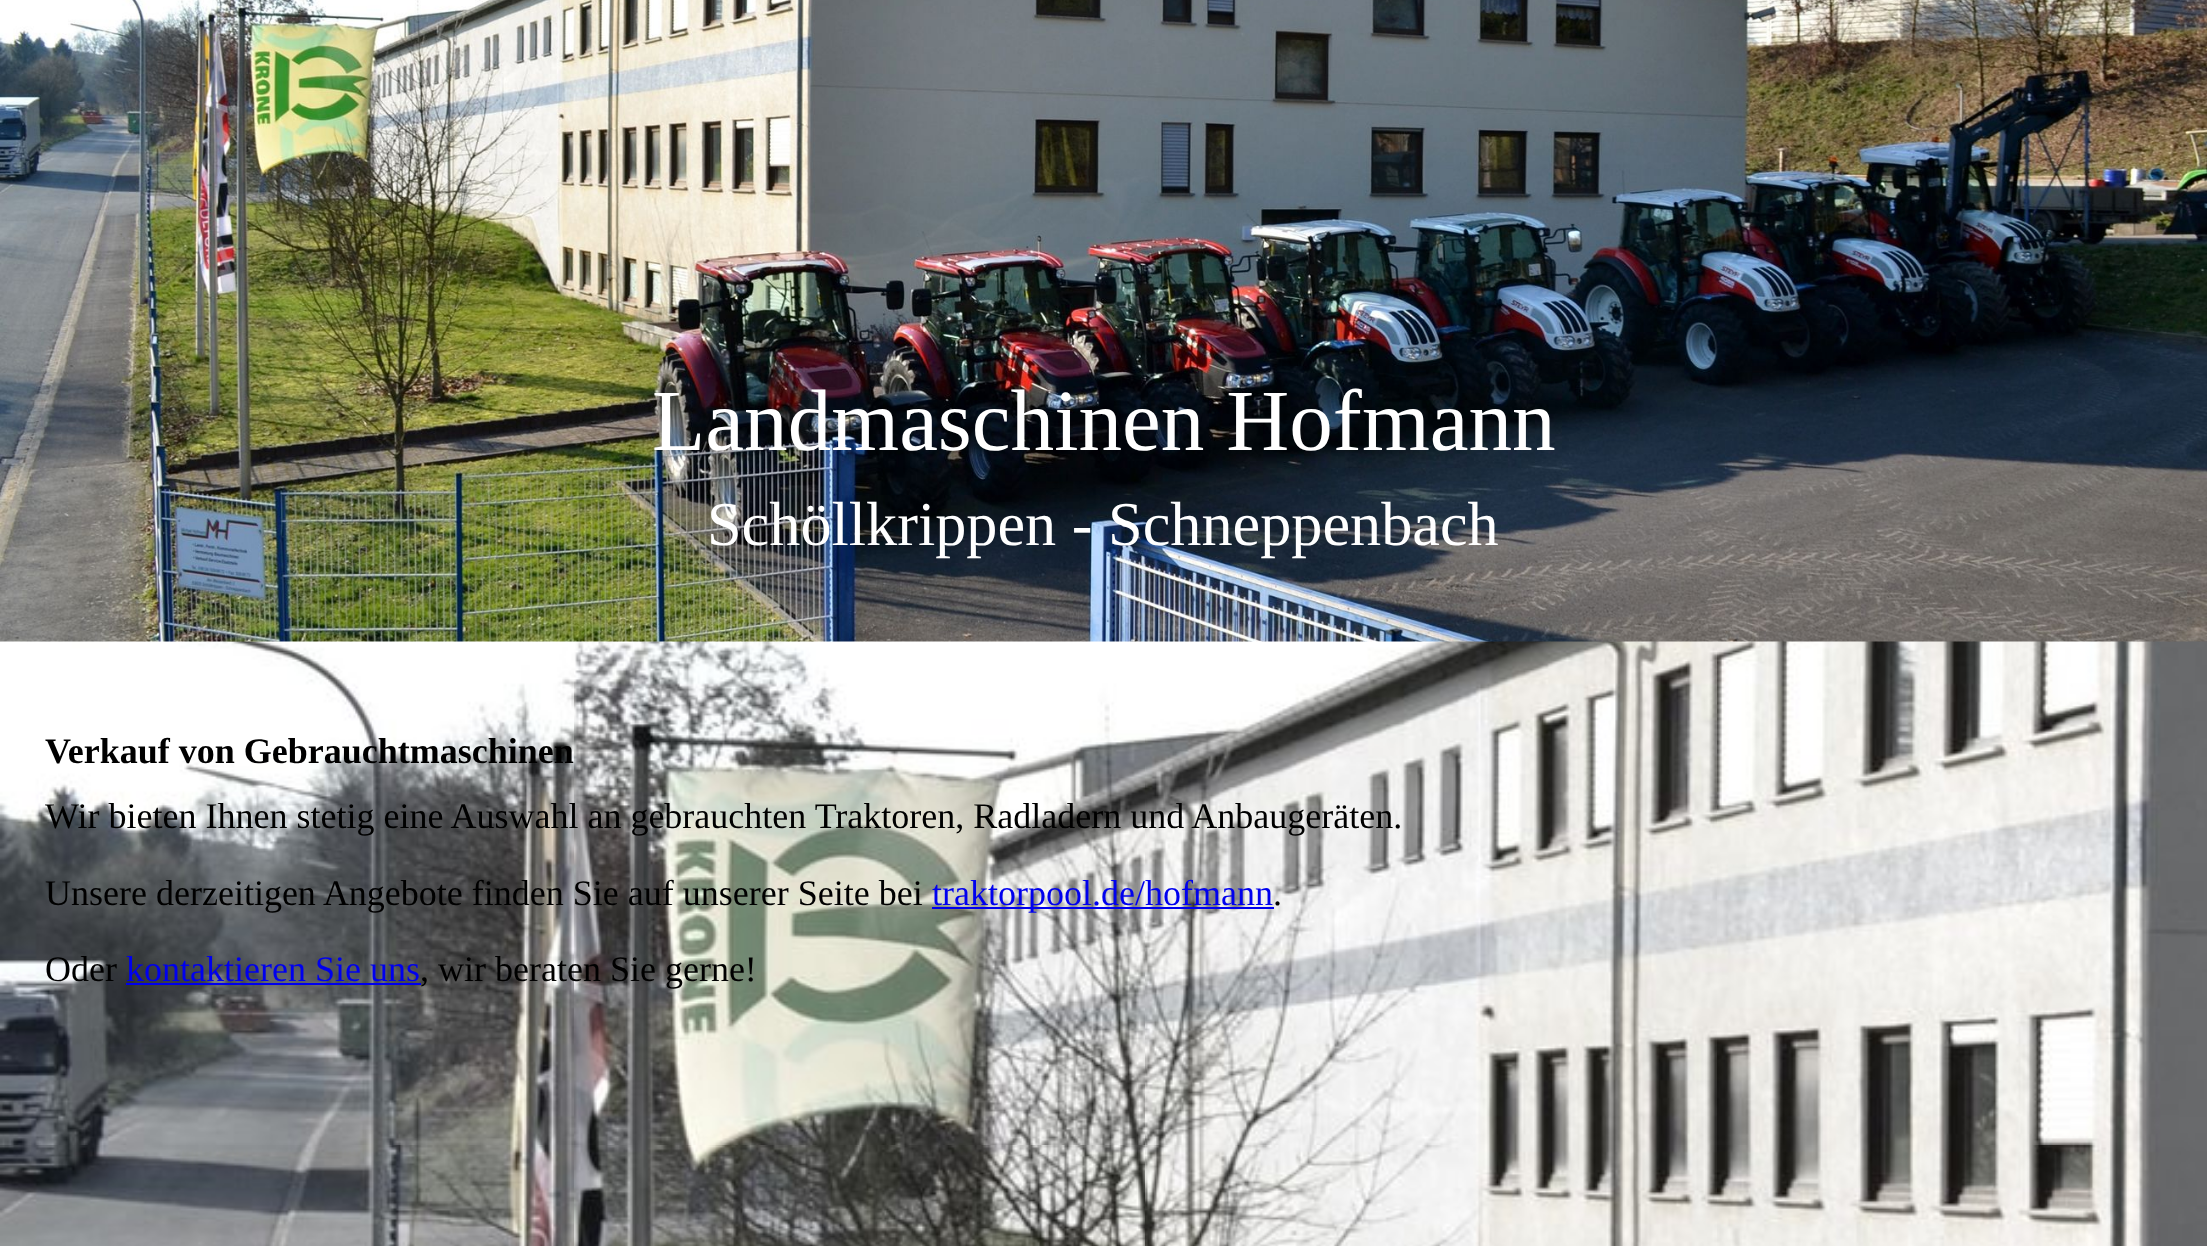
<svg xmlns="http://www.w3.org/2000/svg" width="2207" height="1246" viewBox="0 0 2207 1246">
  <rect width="100%" height="100%" fill="#ffffff"/>
  <image x="0" y="641" width="2207" height="605" href="img2.png"/>
  <image x="0" y="0" width="2207" height="642" href="img1.png"/>
  <text x="652" y="450" font-family="Liberation Serif" font-size="87.25" fill="#ffffff">Landmaschinen Hofmann</text>
  <text x="707" y="545" font-family="Liberation Serif" font-size="62.25" fill="#ffffff">Schöllkrippen - Schneppenbach</text>
  <text x="45" y="763" font-family="Liberation Serif" font-size="36" font-weight="bold" fill="#000000">Verkauf von Gebrauchtmaschinen</text>
  <text x="45" y="828" font-family="Liberation Serif" font-size="36" fill="#000000">Wir bieten Ihnen stetig eine Auswahl an gebrauchten Traktoren, Radladern und Anbaugeräten.</text>
  <text x="45" y="905" font-family="Liberation Serif" font-size="36" fill="#000000">Unsere derzeitigen Angebote finden Sie auf unserer Seite bei</text>
  <rect x="932" y="907" width="342" height="2" fill="#0000ee"/>
  <text x="932" y="905" font-family="Liberation Serif" font-size="36" fill="#0000ee">traktorpool.de/hofmann</text>
  <text x="1273" y="905" font-family="Liberation Serif" font-size="36" fill="#000000">.</text>
  <text x="45" y="981" font-family="Liberation Serif" font-size="36" fill="#000000">Oder</text>
  <text x="126" y="981" font-family="Liberation Serif" font-size="36" fill="#0000ee">kontaktieren Sie uns</text>
  <rect x="126" y="983" width="295" height="2" fill="#0000ee"/>
  <text x="420" y="981" font-family="Liberation Serif" font-size="36" fill="#000000">, wir beraten Sie gerne!</text>
</svg>
